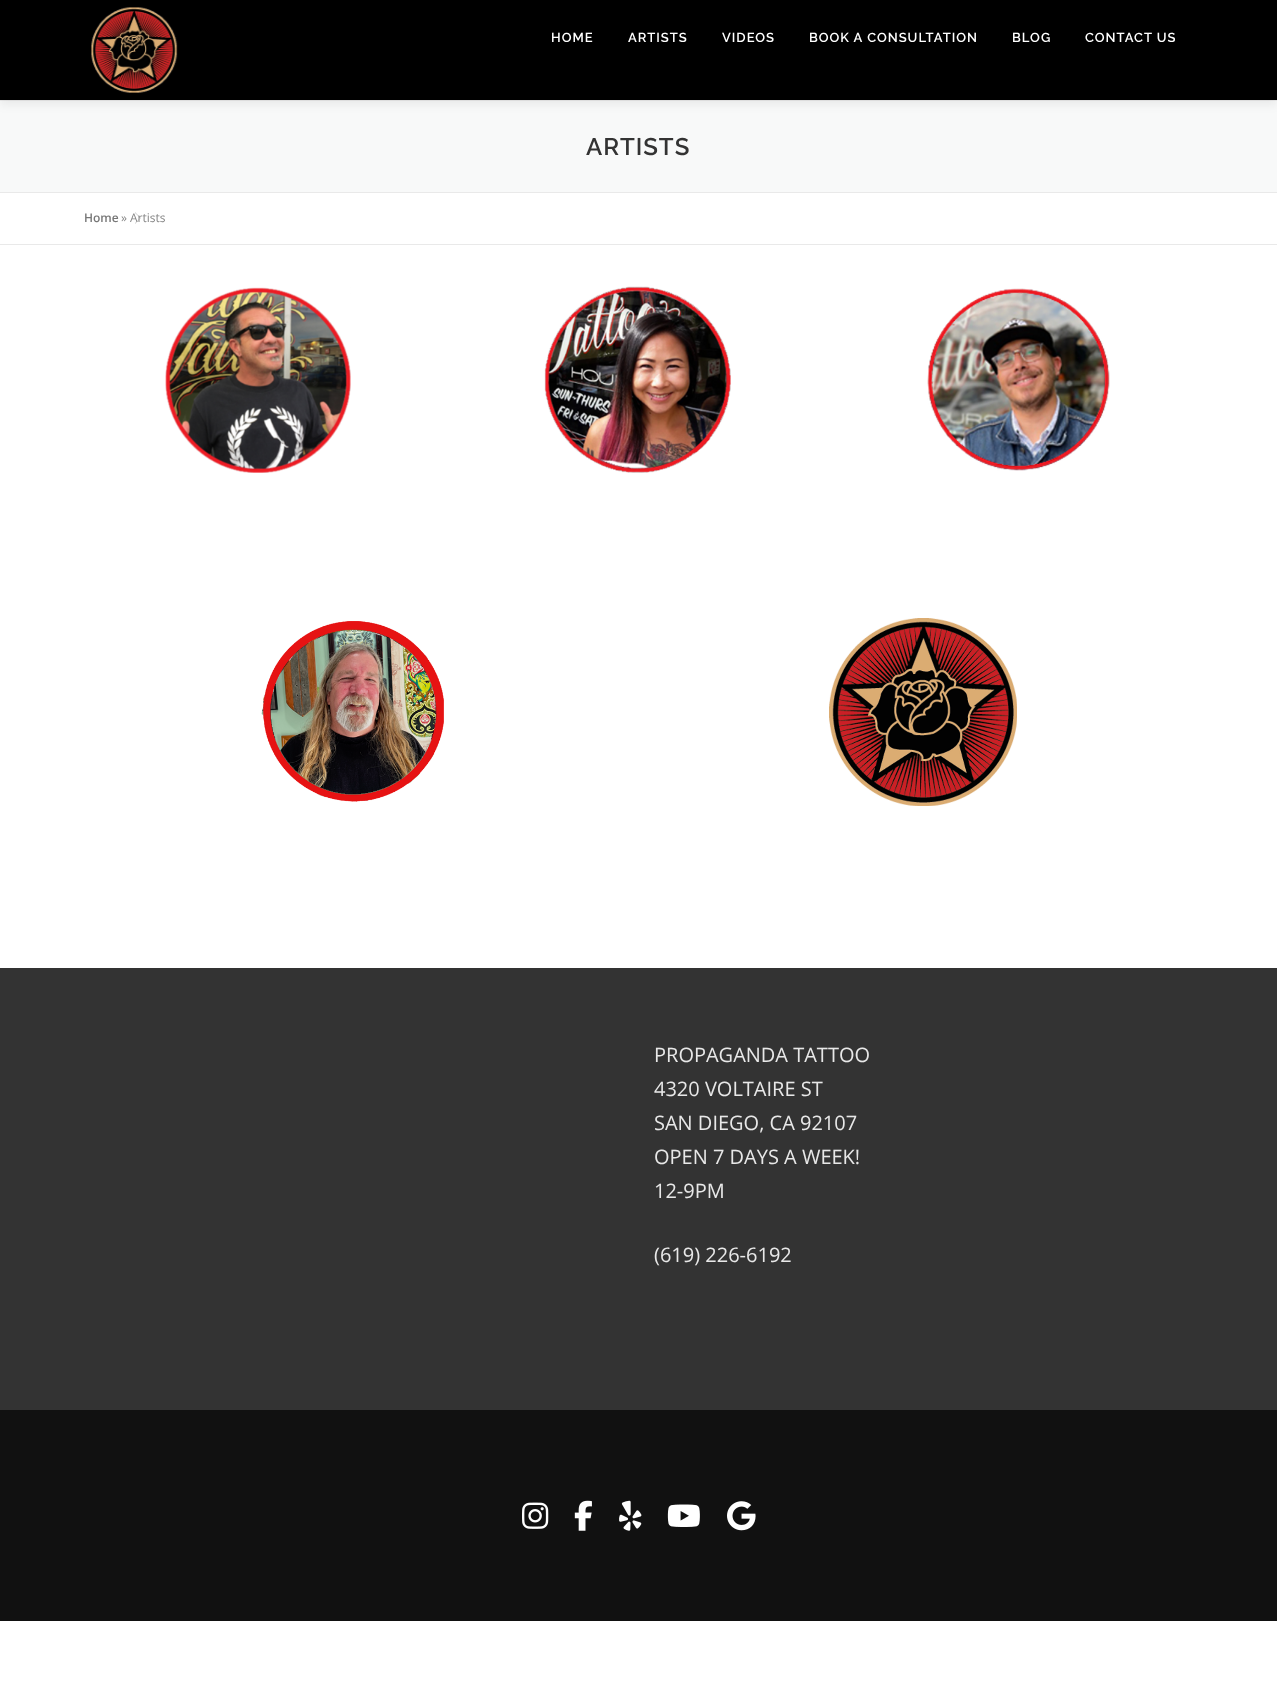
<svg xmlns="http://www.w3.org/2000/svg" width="1277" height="1687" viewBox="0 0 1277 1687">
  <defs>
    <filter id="blur1" x="-50%" y="-200%" width="200%" height="500%"><feGaussianBlur stdDeviation="5"/></filter>
  </defs>
  <rect width="100%" height="100%" fill="#ffffff"/>
  <rect x="0" y="101" width="1277" height="91" fill="#f8f9f9"/>
  <rect x="0" y="100" width="1277" height="1" fill="#e9e9e9"/>
  <rect x="0" y="5" width="1277" height="100" fill="#323232" fill-opacity="0.06" filter="url(#blur1)"/>
  <rect x="0" y="0" width="1277" height="100" fill="#000000"/>
  <image x="91" y="7" width="87" height="86" href="img1.png"/>
  <text x="551" y="42" font-family="Raleway" font-size="13" font-weight="600" letter-spacing="1" fill="#ffffff">HOME</text>
  <text x="628" y="42" font-family="Raleway" font-size="13" font-weight="600" letter-spacing="1" fill="#ffffff">ARTISTS</text>
  <text x="722" y="42" font-family="Raleway" font-size="13" font-weight="600" letter-spacing="1" fill="#ffffff">VIDEOS</text>
  <text x="809" y="42" font-family="Raleway" font-size="13" font-weight="600" letter-spacing="1" fill="#ffffff">BOOK A CONSULTATION</text>
  <text x="1012" y="42" font-family="Raleway" font-size="13" font-weight="600" letter-spacing="1" fill="#ffffff">BLOG</text>
  <text x="1085" y="42" font-family="Raleway" font-size="13" font-weight="600" letter-spacing="1" fill="#ffffff">CONTACT US</text>
  <rect x="0" y="192" width="1277" height="1" fill="#e9e9e9"/>
  <text x="586" y="155" font-family="Raleway" font-size="24" font-weight="600" letter-spacing="1" fill="#333333">ARTISTS</text>
  <rect x="0" y="244" width="1277" height="1" fill="#e9e9e9"/>
  <text x="84" y="222" font-family="Open Sans" font-size="12" font-weight="600" fill="#777777">Home</text>
  <path d="M135 224V212L141 218Z" fill="#cccccc"/>
  <path d="M135 223V213L140 218Z" fill="#ffffff"/>
  <text x="121" y="222" font-family="Open Sans" font-size="12" fill="#858585">»</text>
  <text x="130" y="222" font-family="Open Sans" font-size="12" fill="#858585">Artists</text>
  <image x="165" y="287" width="186" height="186" href="img2.png"/>
  <image x="544" y="286" width="187" height="187" href="img3.png"/>
  <image x="927" y="288" width="183" height="183" href="img4.png"/>
  <image x="261" y="621" width="183" height="181" href="img5.png"/>
  <image x="829" y="618" width="188" height="188" href="img6.png"/>
  <rect x="0" y="1410" width="1277" height="211" fill="#111111"/>
  <rect x="0" y="968" width="1277" height="442" fill="#333333"/>
  <text x="654" y="1062" font-family="Open Sans" font-size="20" fill="#e8e8e8">PROPAGANDA TATTOO</text>
  <text x="654" y="1096" font-family="Open Sans" font-size="20" fill="#e8e8e8">4320 VOLTAIRE ST</text>
  <text x="654" y="1130" font-family="Open Sans" font-size="20" fill="#e8e8e8">SAN DIEGO, CA 92107</text>
  <text x="654" y="1164" font-family="Open Sans" font-size="20" fill="#e8e8e8">OPEN 7 DAYS A WEEK!</text>
  <text x="654" y="1198" font-family="Open Sans" font-size="20" fill="#e8e8e8">12-9PM</text>
  <text x="654" y="1262" font-family="Open Sans" font-size="20" fill="#e8e8e8">(619) 226-6192</text>
  <image x="522" y="1502" width="27" height="27" href="img7.png"/>
  <image x="574" y="1500" width="18" height="31" href="img8.png"/>
  <image x="619" y="1500" width="23" height="31" href="img9.png"/>
  <image x="667" y="1504" width="33" height="23" href="img10.png"/>
  <image x="727" y="1501" width="29" height="30" href="img11.png"/>
</svg>
